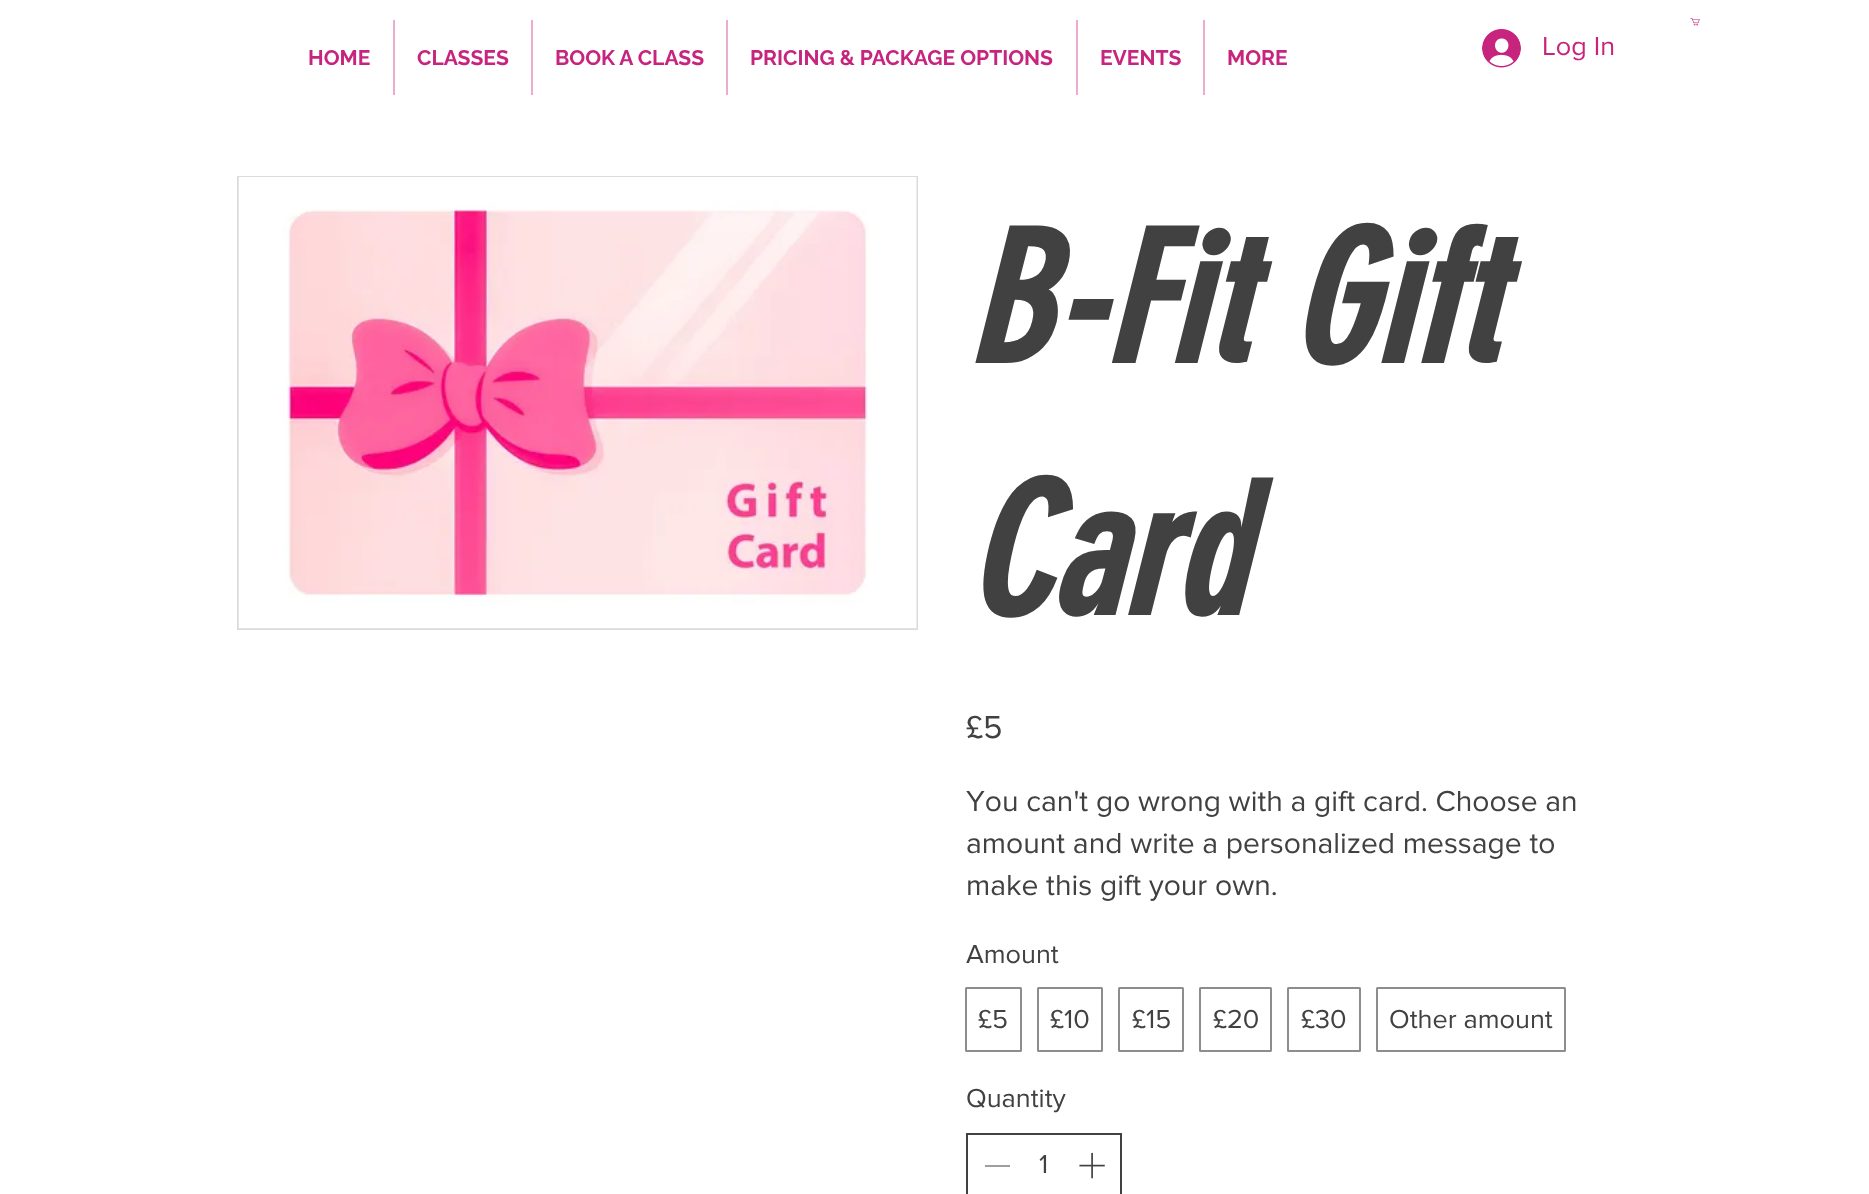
<svg xmlns="http://www.w3.org/2000/svg" width="1869" height="1194" viewBox="0 0 1869 1194">
  <rect width="100%" height="100%" fill="#ffffff"/>
  <image x="1690" y="18" width="10" height="8" href="img1.png"/>
  <text x="308" y="65" font-family="Raleway" font-size="21" font-weight="bold" fill="#c7247e">HOME</text>
  <rect x="393" y="20" width="2" height="75" fill="#ecaccf"/>
  <text x="417" y="65" font-family="Raleway" font-size="21" font-weight="bold" fill="#c7247e">CLASSES</text>
  <rect x="531" y="20" width="2" height="75" fill="#ecaccf"/>
  <text x="555" y="65" font-family="Raleway" font-size="21" font-weight="bold" fill="#c7247e">BOOK A CLASS</text>
  <rect x="726" y="20" width="2" height="75" fill="#ecaccf"/>
  <text x="750" y="65" font-family="Raleway" font-size="21" font-weight="bold" fill="#c7247e">PRICING &amp; PACKAGE OPTIONS</text>
  <rect x="1076" y="20" width="2" height="75" fill="#ecaccf"/>
  <text x="1100" y="65" font-family="Raleway" font-size="21" font-weight="bold" fill="#c7247e">EVENTS</text>
  <rect x="1203" y="20" width="2" height="75" fill="#ecaccf"/>
  <text x="1227" y="65" font-family="Raleway" font-size="21" font-weight="bold" fill="#c7247e">MORE</text>
  <image x="1482" y="29" width="39" height="39" href="img2.png"/>
  <text x="1542" y="55" font-family="'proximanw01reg'" font-size="27" fill="#c7247e">Log In</text>
  <rect x="238" y="177" width="679" height="452" fill="none" stroke="#dbdbdb" stroke-width="2"/>
  <image x="238" y="177" width="679" height="452" href="img3.png"/>
  <text x="966" y="363" font-family="'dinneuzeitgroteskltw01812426'" font-size="180" font-weight="bold" font-style="italic" fill="#414141">B-Fit Gift</text>
  <text x="966" y="615" font-family="'dinneuzeitgroteskltw01812426'" font-size="180" font-weight="bold" font-style="italic" fill="#414141">Card</text>
  <text x="966" y="738" font-family="'proximanw01reg'" font-size="33" fill="#414141">£5</text>
  <text x="966" y="811" font-family="'proximanw01reg'" font-size="30" fill="#414141">You can't go wrong with a gift card. Choose an</text>
  <text x="966" y="853" font-family="'proximanw01reg'" font-size="30" fill="#414141">amount and write a personalized message to</text>
  <text x="966" y="895" font-family="'proximanw01reg'" font-size="30" fill="#414141">make this gift your own.</text>
  <text x="966" y="963" font-family="'proximanw01reg'" font-size="27" fill="#414141">Amount</text>
  <rect x="966" y="988" width="55" height="63" rx="0.5" fill="none" stroke="#8d8d8d" stroke-width="2"/>
  <text x="978" y="1028" font-family="'proximanw01reg'" font-size="27" fill="#414141">£5</text>
  <rect x="1038" y="988" width="64" height="63" rx="0.5" fill="none" stroke="#8d8d8d" stroke-width="2"/>
  <text x="1050" y="1028" font-family="'proximanw01reg'" font-size="27" fill="#414141">£10</text>
  <rect x="1119" y="988" width="64" height="63" rx="0.5" fill="none" stroke="#8d8d8d" stroke-width="2"/>
  <text x="1132" y="1028" font-family="'proximanw01reg'" font-size="27" fill="#414141">£15</text>
  <rect x="1200" y="988" width="71" height="63" rx="0.5" fill="none" stroke="#8d8d8d" stroke-width="2"/>
  <text x="1213" y="1028" font-family="'proximanw01reg'" font-size="27" fill="#414141">£20</text>
  <rect x="1288" y="988" width="72" height="63" rx="0.5" fill="none" stroke="#8d8d8d" stroke-width="2"/>
  <text x="1301" y="1028" font-family="'proximanw01reg'" font-size="27" fill="#414141">£30</text>
  <rect x="1377" y="988" width="188" height="63" rx="0.5" fill="none" stroke="#8d8d8d" stroke-width="2"/>
  <text x="1389" y="1028" font-family="'proximanw01reg'" font-size="27" fill="#414141">Other amount</text>
  <text x="966" y="1107" font-family="'proximanw01reg'" font-size="27" fill="#414141">Quantity</text>
  <rect x="967" y="1134" width="154" height="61" fill="none" stroke="#414141" stroke-width="2"/>
  <rect x="985" y="1165" width="25" height="2" fill="#9e9e9e"/>
  <text x="1039" y="1173" font-family="'proximanw01reg'" font-size="27" fill="#414141">1</text>
  <image x="1079" y="1152" width="26" height="27" href="img4.png"/>
</svg>
